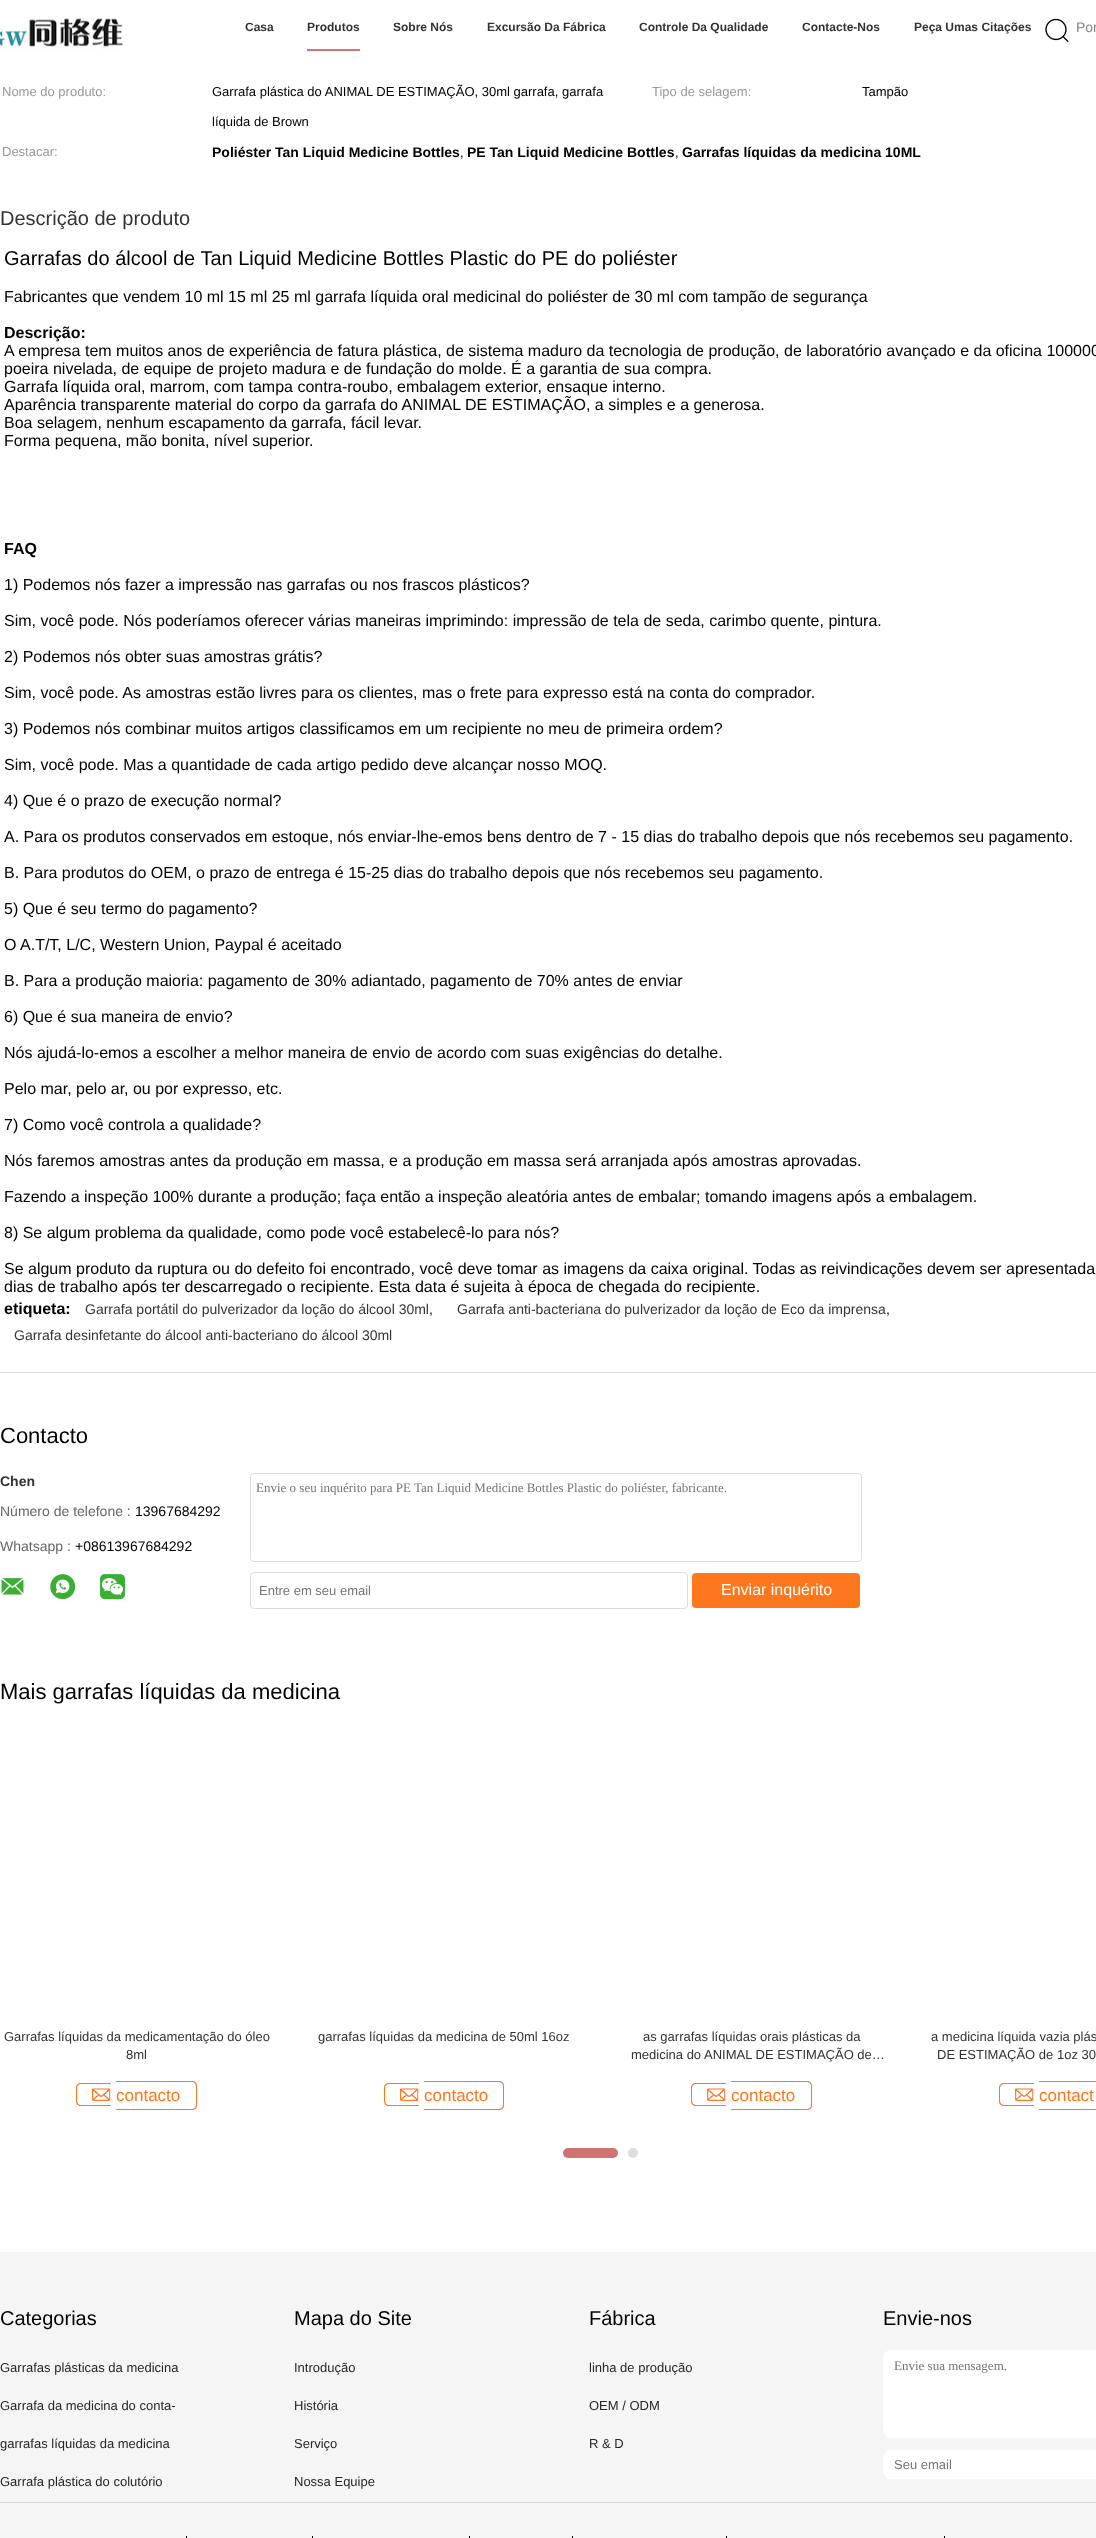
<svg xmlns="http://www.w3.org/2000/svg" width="1096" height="2538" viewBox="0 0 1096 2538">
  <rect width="100%" height="100%" fill="#ffffff"/>
  <image x="0" y="16" width="123" height="35" href="img1.png"/>
  <text x="245" y="31" font-family="Liberation Sans" font-size="12" font-weight="bold" fill="#333333">Casa</text>
  <rect x="307" y="49" width="53" height="2" fill="#d17474"/>
  <text x="307" y="31" font-family="Liberation Sans" font-size="12" font-weight="bold" fill="#333333">Produtos</text>
  <text x="393" y="31" font-family="Liberation Sans" font-size="12" font-weight="bold" fill="#333333">Sobre Nós</text>
  <text x="487" y="31" font-family="Liberation Sans" font-size="12" font-weight="bold" fill="#333333">Excursão Da Fábrica</text>
  <text x="639" y="31" font-family="Liberation Sans" font-size="12" font-weight="bold" fill="#333333">Controle Da Qualidade</text>
  <text x="802" y="31" font-family="Liberation Sans" font-size="12" font-weight="bold" fill="#333333">Contacte-Nos</text>
  <text x="914" y="31" font-family="Liberation Sans" font-size="12" font-weight="bold" fill="#333333">Peça Umas Citações</text>
  <image x="1045" y="18" width="24" height="25" href="img2.png"/>
  <text x="1076" y="32" font-family="Liberation Sans" font-size="14" fill="#888888">Por</text>
  <rect x="0" y="1372" width="1096" height="1" fill="#dddddd"/>
  <text x="2" y="96" font-family="Liberation Sans" font-size="13" fill="#999999">Nome do produto:</text>
  <text x="212" y="96" font-family="Liberation Sans" font-size="13" fill="#000000">Garrafa plástica do ANIMAL DE ESTIMAÇÃO, 30ml garrafa, garrafa</text>
  <text x="212" y="126" font-family="Liberation Sans" font-size="13" fill="#000000">líquida de Brown</text>
  <text x="652" y="96" font-family="Liberation Sans" font-size="13" fill="#999999">Tipo de selagem:</text>
  <text x="862" y="96" font-family="Liberation Sans" font-size="13" fill="#000000">Tampão</text>
  <text x="2" y="156" font-family="Liberation Sans" font-size="13" fill="#999999">Destacar:</text>
  <text x="212" y="157" font-family="Liberation Sans" font-size="14" font-weight="bold" fill="#000000">Poliéster Tan Liquid Medicine Bottles</text>
  <text x="460" y="157" font-family="Liberation Sans" font-size="13" fill="#000000">,</text>
  <text x="467" y="157" font-family="Liberation Sans" font-size="14" font-weight="bold" fill="#000000">PE Tan Liquid Medicine Bottles</text>
  <text x="675" y="157" font-family="Liberation Sans" font-size="13" fill="#000000">,</text>
  <text x="682" y="157" font-family="Liberation Sans" font-size="14" font-weight="bold" fill="#000000">Garrafas líquidas da medicina 10ML</text>
  <text x="0" y="225" font-family="Liberation Sans" font-size="20" fill="#333333">Descrição de produto</text>
  <text x="4" y="265" font-family="Liberation Sans" font-size="20" fill="#000000">Garrafas do álcool de Tan Liquid Medicine Bottles Plastic do PE do poliéster</text>
  <text x="4" y="302" font-family="Liberation Sans" font-size="16" fill="#000000">Fabricantes que vendem 10 ml 15 ml 25 ml garrafa líquida oral medicinal do poliéster de 30 ml com tampão de segurança</text>
  <text x="4" y="338" font-family="Liberation Sans" font-size="16" font-weight="bold" fill="#000000">Descrição:</text>
  <text x="4" y="356" font-family="Liberation Sans" font-size="16" fill="#000000">A empresa tem muitos anos de experiência de fatura plástica, de sistema maduro da tecnologia de produção, de laboratório avançado e da oficina 100000</text>
  <text x="4" y="374" font-family="Liberation Sans" font-size="16" fill="#000000">poeira nivelada, de equipe de projeto madura e de fundação do molde. É a garantia de sua compra.</text>
  <text x="4" y="392" font-family="Liberation Sans" font-size="16" fill="#000000">Garrafa líquida oral, marrom, com tampa contra-roubo, embalagem exterior, ensaque interno.</text>
  <text x="4" y="410" font-family="Liberation Sans" font-size="16" fill="#000000">Aparência transparente material do corpo da garrafa do ANIMAL DE ESTIMAÇÃO, a simples e a generosa.</text>
  <text x="4" y="428" font-family="Liberation Sans" font-size="16" fill="#000000">Boa selagem, nenhum escapamento da garrafa, fácil levar.</text>
  <text x="4" y="446" font-family="Liberation Sans" font-size="16" fill="#000000">Forma pequena, mão bonita, nível superior.</text>
  <text x="4" y="554" font-family="Liberation Sans" font-size="16" font-weight="bold" fill="#000000">FAQ</text>
  <text x="4" y="590" font-family="Liberation Sans" font-size="16" fill="#000000">1) Podemos nós fazer a impressão nas garrafas ou nos frascos plásticos?</text>
  <text x="4" y="626" font-family="Liberation Sans" font-size="16" fill="#000000">Sim, você pode. Nós poderíamos oferecer várias maneiras imprimindo: impressão de tela de seda, carimbo quente, pintura.</text>
  <text x="4" y="662" font-family="Liberation Sans" font-size="16" fill="#000000">2) Podemos nós obter suas amostras grátis?</text>
  <text x="4" y="698" font-family="Liberation Sans" font-size="16" fill="#000000">Sim, você pode. As amostras estão livres para os clientes, mas o frete para expresso está na conta do comprador.</text>
  <text x="4" y="734" font-family="Liberation Sans" font-size="16" fill="#000000">3) Podemos nós combinar muitos artigos classificamos em um recipiente no meu de primeira ordem?</text>
  <text x="4" y="770" font-family="Liberation Sans" font-size="16" fill="#000000">Sim, você pode. Mas a quantidade de cada artigo pedido deve alcançar nosso MOQ.</text>
  <text x="4" y="806" font-family="Liberation Sans" font-size="16" fill="#000000">4) Que é o prazo de execução normal?</text>
  <text x="4" y="842" font-family="Liberation Sans" font-size="16" fill="#000000">A. Para os produtos conservados em estoque, nós enviar-lhe-emos bens dentro de 7 - 15 dias do trabalho depois que nós recebemos seu pagamento.</text>
  <text x="4" y="878" font-family="Liberation Sans" font-size="16" fill="#000000">B. Para produtos do OEM, o prazo de entrega é 15-25 dias do trabalho depois que nós recebemos seu pagamento.</text>
  <text x="4" y="914" font-family="Liberation Sans" font-size="16" fill="#000000">5) Que é seu termo do pagamento?</text>
  <text x="4" y="950" font-family="Liberation Sans" font-size="16" fill="#000000">O A.T/T, L/C, Western Union, Paypal é aceitado</text>
  <text x="4" y="986" font-family="Liberation Sans" font-size="16" fill="#000000">B. Para a produção maioria: pagamento de 30% adiantado, pagamento de 70% antes de enviar</text>
  <text x="4" y="1022" font-family="Liberation Sans" font-size="16" fill="#000000">6) Que é sua maneira de envio?</text>
  <text x="4" y="1058" font-family="Liberation Sans" font-size="16" fill="#000000">Nós ajudá-lo-emos a escolher a melhor maneira de envio de acordo com suas exigências do detalhe.</text>
  <text x="4" y="1094" font-family="Liberation Sans" font-size="16" fill="#000000">Pelo mar, pelo ar, ou por expresso, etc.</text>
  <text x="4" y="1130" font-family="Liberation Sans" font-size="16" fill="#000000">7) Como você controla a qualidade?</text>
  <text x="4" y="1166" font-family="Liberation Sans" font-size="16" fill="#000000">Nós faremos amostras antes da produção em massa, e a produção em massa será arranjada após amostras aprovadas.</text>
  <text x="4" y="1202" font-family="Liberation Sans" font-size="16" fill="#000000">Fazendo a inspeção 100% durante a produção; faça então a inspeção aleatória antes de embalar; tomando imagens após a embalagem.</text>
  <text x="4" y="1238" font-family="Liberation Sans" font-size="16" fill="#000000">8) Se algum problema da qualidade, como pode você estabelecê-lo para nós?</text>
  <text x="4" y="1274" font-family="Liberation Sans" font-size="16" fill="#000000">Se algum produto da ruptura ou do defeito foi encontrado, você deve tomar as imagens da caixa original. Todas as reivindicações devem ser apresentada</text>
  <text x="4" y="1292" font-family="Liberation Sans" font-size="16" fill="#000000">dias de trabalho após ter descarregado o recipiente. Esta data é sujeita à época de chegada do recipiente.</text>
  <text x="4" y="1314" font-family="Liberation Sans" font-size="16" font-weight="bold" fill="#000000">etiqueta:</text>
  <text x="85" y="1314" font-family="Liberation Sans" font-size="14" fill="#333333">Garrafa portátil do pulverizador da loção do álcool 30ml</text>
  <text x="429" y="1314" font-family="Liberation Sans" font-size="14" fill="#000000">,</text>
  <text x="457" y="1314" font-family="Liberation Sans" font-size="14" fill="#333333">Garrafa anti-bacteriana do pulverizador da loção de Eco da imprensa</text>
  <text x="886" y="1314" font-family="Liberation Sans" font-size="14" fill="#000000">,</text>
  <text x="14" y="1340" font-family="Liberation Sans" font-size="14" fill="#333333">Garrafa desinfetante do álcool anti-bacteriano do álcool 30ml</text>
  <text x="0" y="1443" font-family="Liberation Sans" font-size="22" fill="#000000">Contacto</text>
  <text x="0" y="1486" font-family="Liberation Sans" font-size="14" font-weight="bold" fill="#333333">Chen</text>
  <text x="0" y="1516" font-family="Liberation Sans" font-size="14" fill="#666666">Número de telefone :</text>
  <text x="135" y="1516" font-family="Liberation Sans" font-size="14" fill="#000000">13967684292</text>
  <text x="0" y="1551" font-family="Liberation Sans" font-size="14" fill="#666666">Whatsapp :</text>
  <text x="75" y="1551" font-family="Liberation Sans" font-size="14" fill="#000000">+08613967684292</text>
  <image x="1" y="1578" width="23" height="17" href="img3.png"/>
  <image x="50" y="1574" width="26" height="26" href="img4.png"/>
  <image x="100" y="1574" width="25" height="26" href="img5.png"/>
  <rect x="250.5" y="1473.5" width="611" height="88" rx="3.5" fill="none" stroke="#dddddd"/>
  <text x="256" y="1492" font-family="Liberation Serif" font-size="13" fill="#757575">Envie o seu inquérito para PE Tan Liquid Medicine Bottles Plastic do poliéster, fabricante.</text>
  <rect x="250.5" y="1572.5" width="437" height="36" rx="3.5" fill="none" stroke="#dddddd"/>
  <text x="259" y="1595" font-family="Liberation Sans" font-size="13" fill="#757575">Entre em seu email</text>
  <rect x="692" y="1573" width="168" height="35" rx="4" fill="#ff771c"/>
  <text x="721" y="1595" font-family="Liberation Sans" font-size="16" fill="#ffffff">Enviar inquérito</text>
  <text x="0" y="1699" font-family="Liberation Sans" font-size="22" fill="#000000">Mais garrafas líquidas da medicina</text>
  <text x="4" y="2041" font-family="Liberation Sans" font-size="13" fill="#333333">Garrafas líquidas da medicamentação do óleo</text>
  <text x="126" y="2059" font-family="Liberation Sans" font-size="13" fill="#333333">8ml</text>
  <path d="M81 2083H111V2106H81C78 2106 76 2104 76 2101V2088C76 2085 78 2083 81 2083ZM81 2084H111V2105H81C79 2105 77 2103 77 2101V2088C77 2086 79 2084 81 2084Z" fill="#ff771c" fill-rule="evenodd"/>
  <path d="M116 2081H192C195 2081 197 2083 197 2086V2105C197 2108 195 2110 192 2110H116ZM116 2082H192C194 2082 196 2084 196 2086V2105C196 2107 194 2109 192 2109H116Z" fill="#ff771c" fill-rule="evenodd"/>
  <image x="92" y="2088" width="19" height="13" href="img6.png"/>
  <text x="116" y="2101" font-family="Liberation Sans" font-size="17" fill="#ff771c">contacto</text>
  <text x="318" y="2041" font-family="Liberation Sans" font-size="13" fill="#333333">garrafas líquidas da medicina de 50ml 16oz</text>
  <path d="M389 2083H419V2106H389C386 2106 384 2104 384 2101V2088C384 2085 386 2083 389 2083ZM389 2084H419V2105H389C387 2105 385 2103 385 2101V2088C385 2086 387 2084 389 2084Z" fill="#ff771c" fill-rule="evenodd"/>
  <path d="M424 2081H499C502 2081 504 2083 504 2086V2105C504 2108 502 2110 499 2110H424ZM424 2082H499C501 2082 503 2084 503 2086V2105C503 2107 501 2109 499 2109H424Z" fill="#ff771c" fill-rule="evenodd"/>
  <image x="400" y="2088" width="19" height="13" href="img6.png"/>
  <text x="424" y="2101" font-family="Liberation Sans" font-size="17" fill="#ff771c">contacto</text>
  <text x="643" y="2041" font-family="Liberation Sans" font-size="13" fill="#333333">as garrafas líquidas orais plásticas da</text>
  <text x="631" y="2059" font-family="Liberation Sans" font-size="13" fill="#333333">medicina do ANIMAL DE ESTIMAÇÃO de…</text>
  <path d="M696 2083H726V2106H696C693 2106 691 2104 691 2101V2088C691 2085 693 2083 696 2083ZM696 2084H726V2105H696C694 2105 692 2103 692 2101V2088C692 2086 694 2084 696 2084Z" fill="#ff771c" fill-rule="evenodd"/>
  <path d="M731 2081H807C810 2081 812 2083 812 2086V2105C812 2108 810 2110 807 2110H731ZM731 2082H807C809 2082 811 2084 811 2086V2105C811 2107 809 2109 807 2109H731Z" fill="#ff771c" fill-rule="evenodd"/>
  <image x="707" y="2088" width="19" height="13" href="img6.png"/>
  <text x="731" y="2101" font-family="Liberation Sans" font-size="17" fill="#ff771c">contacto</text>
  <text x="931" y="2041" font-family="Liberation Sans" font-size="13" fill="#333333">a medicina líquida vazia plás</text>
  <text x="937" y="2059" font-family="Liberation Sans" font-size="13" fill="#333333">DE ESTIMAÇÃO de 1oz 30</text>
  <path d="M1004 2083H1034V2106H1004C1001 2106 999 2104 999 2101V2088C999 2085 1001 2083 1004 2083ZM1004 2084H1034V2105H1004C1002 2105 1000 2103 1000 2101V2088C1000 2086 1002 2084 1004 2084Z" fill="#ff771c" fill-rule="evenodd"/>
  <path d="M1039 2081H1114C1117 2081 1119 2083 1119 2086V2105C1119 2108 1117 2110 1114 2110H1039ZM1039 2082H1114C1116 2082 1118 2084 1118 2086V2105C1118 2107 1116 2109 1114 2109H1039Z" fill="#ff771c" fill-rule="evenodd"/>
  <image x="1015" y="2088" width="19" height="13" href="img6.png"/>
  <text x="1039" y="2101" font-family="Liberation Sans" font-size="17" fill="#ff771c">contact</text>
  <rect x="563" y="2148" width="55" height="10" rx="5" fill="#d07473"/>
  <circle cx="633" cy="2153" r="5" fill="#dddddd"/>
  <rect x="0" y="2252" width="1096" height="286" fill="#f5f5f5"/>
  <text x="0" y="2325" font-family="Liberation Sans" font-size="20" fill="#000000">Categorias</text>
  <text x="0" y="2372" font-family="Liberation Sans" font-size="13" fill="#262626">Garrafas plásticas da medicina</text>
  <text x="0" y="2410" font-family="Liberation Sans" font-size="13" fill="#262626">Garrafa da medicina do conta-</text>
  <text x="0" y="2448" font-family="Liberation Sans" font-size="13" fill="#262626">garrafas líquidas da medicina</text>
  <text x="0" y="2486" font-family="Liberation Sans" font-size="13" fill="#262626">Garrafa plástica do colutório</text>
  <text x="294" y="2325" font-family="Liberation Sans" font-size="20" fill="#000000">Mapa do Site</text>
  <text x="294" y="2372" font-family="Liberation Sans" font-size="13" fill="#262626">Introdução</text>
  <text x="294" y="2410" font-family="Liberation Sans" font-size="13" fill="#262626">História</text>
  <text x="294" y="2448" font-family="Liberation Sans" font-size="13" fill="#262626">Serviço</text>
  <text x="294" y="2486" font-family="Liberation Sans" font-size="13" fill="#262626">Nossa Equipe</text>
  <text x="589" y="2325" font-family="Liberation Sans" font-size="20" fill="#000000">Fábrica</text>
  <text x="589" y="2372" font-family="Liberation Sans" font-size="13" fill="#262626">linha de produção</text>
  <text x="589" y="2410" font-family="Liberation Sans" font-size="13" fill="#262626">OEM / ODM</text>
  <text x="589" y="2448" font-family="Liberation Sans" font-size="13" fill="#262626">R &amp; D</text>
  <text x="883" y="2325" font-family="Liberation Sans" font-size="20" fill="#000000">Envie-nos</text>
  <rect x="883" y="2350" width="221" height="88" rx="8" fill="#ffffff"/>
  <text x="894" y="2370" font-family="Liberation Serif" font-size="13" fill="#757575">Envie sua mensagem.</text>
  <rect x="883" y="2450" width="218" height="29" rx="8" fill="#ffffff"/>
  <text x="894" y="2469" font-family="Liberation Sans" font-size="13" fill="#757575">Seu email</text>
  <rect x="0" y="2502" width="1096" height="1" fill="#dbdbdb"/>
  <rect x="186" y="2536" width="1" height="2" fill="#000000"/>
  <rect x="312" y="2536" width="1" height="2" fill="#000000"/>
  <rect x="469" y="2536" width="1" height="2" fill="#000000"/>
  <rect x="572" y="2536" width="1" height="2" fill="#000000"/>
  <rect x="726" y="2536" width="1" height="2" fill="#000000"/>
  <rect x="944" y="2536" width="1" height="2" fill="#000000"/>
</svg>
